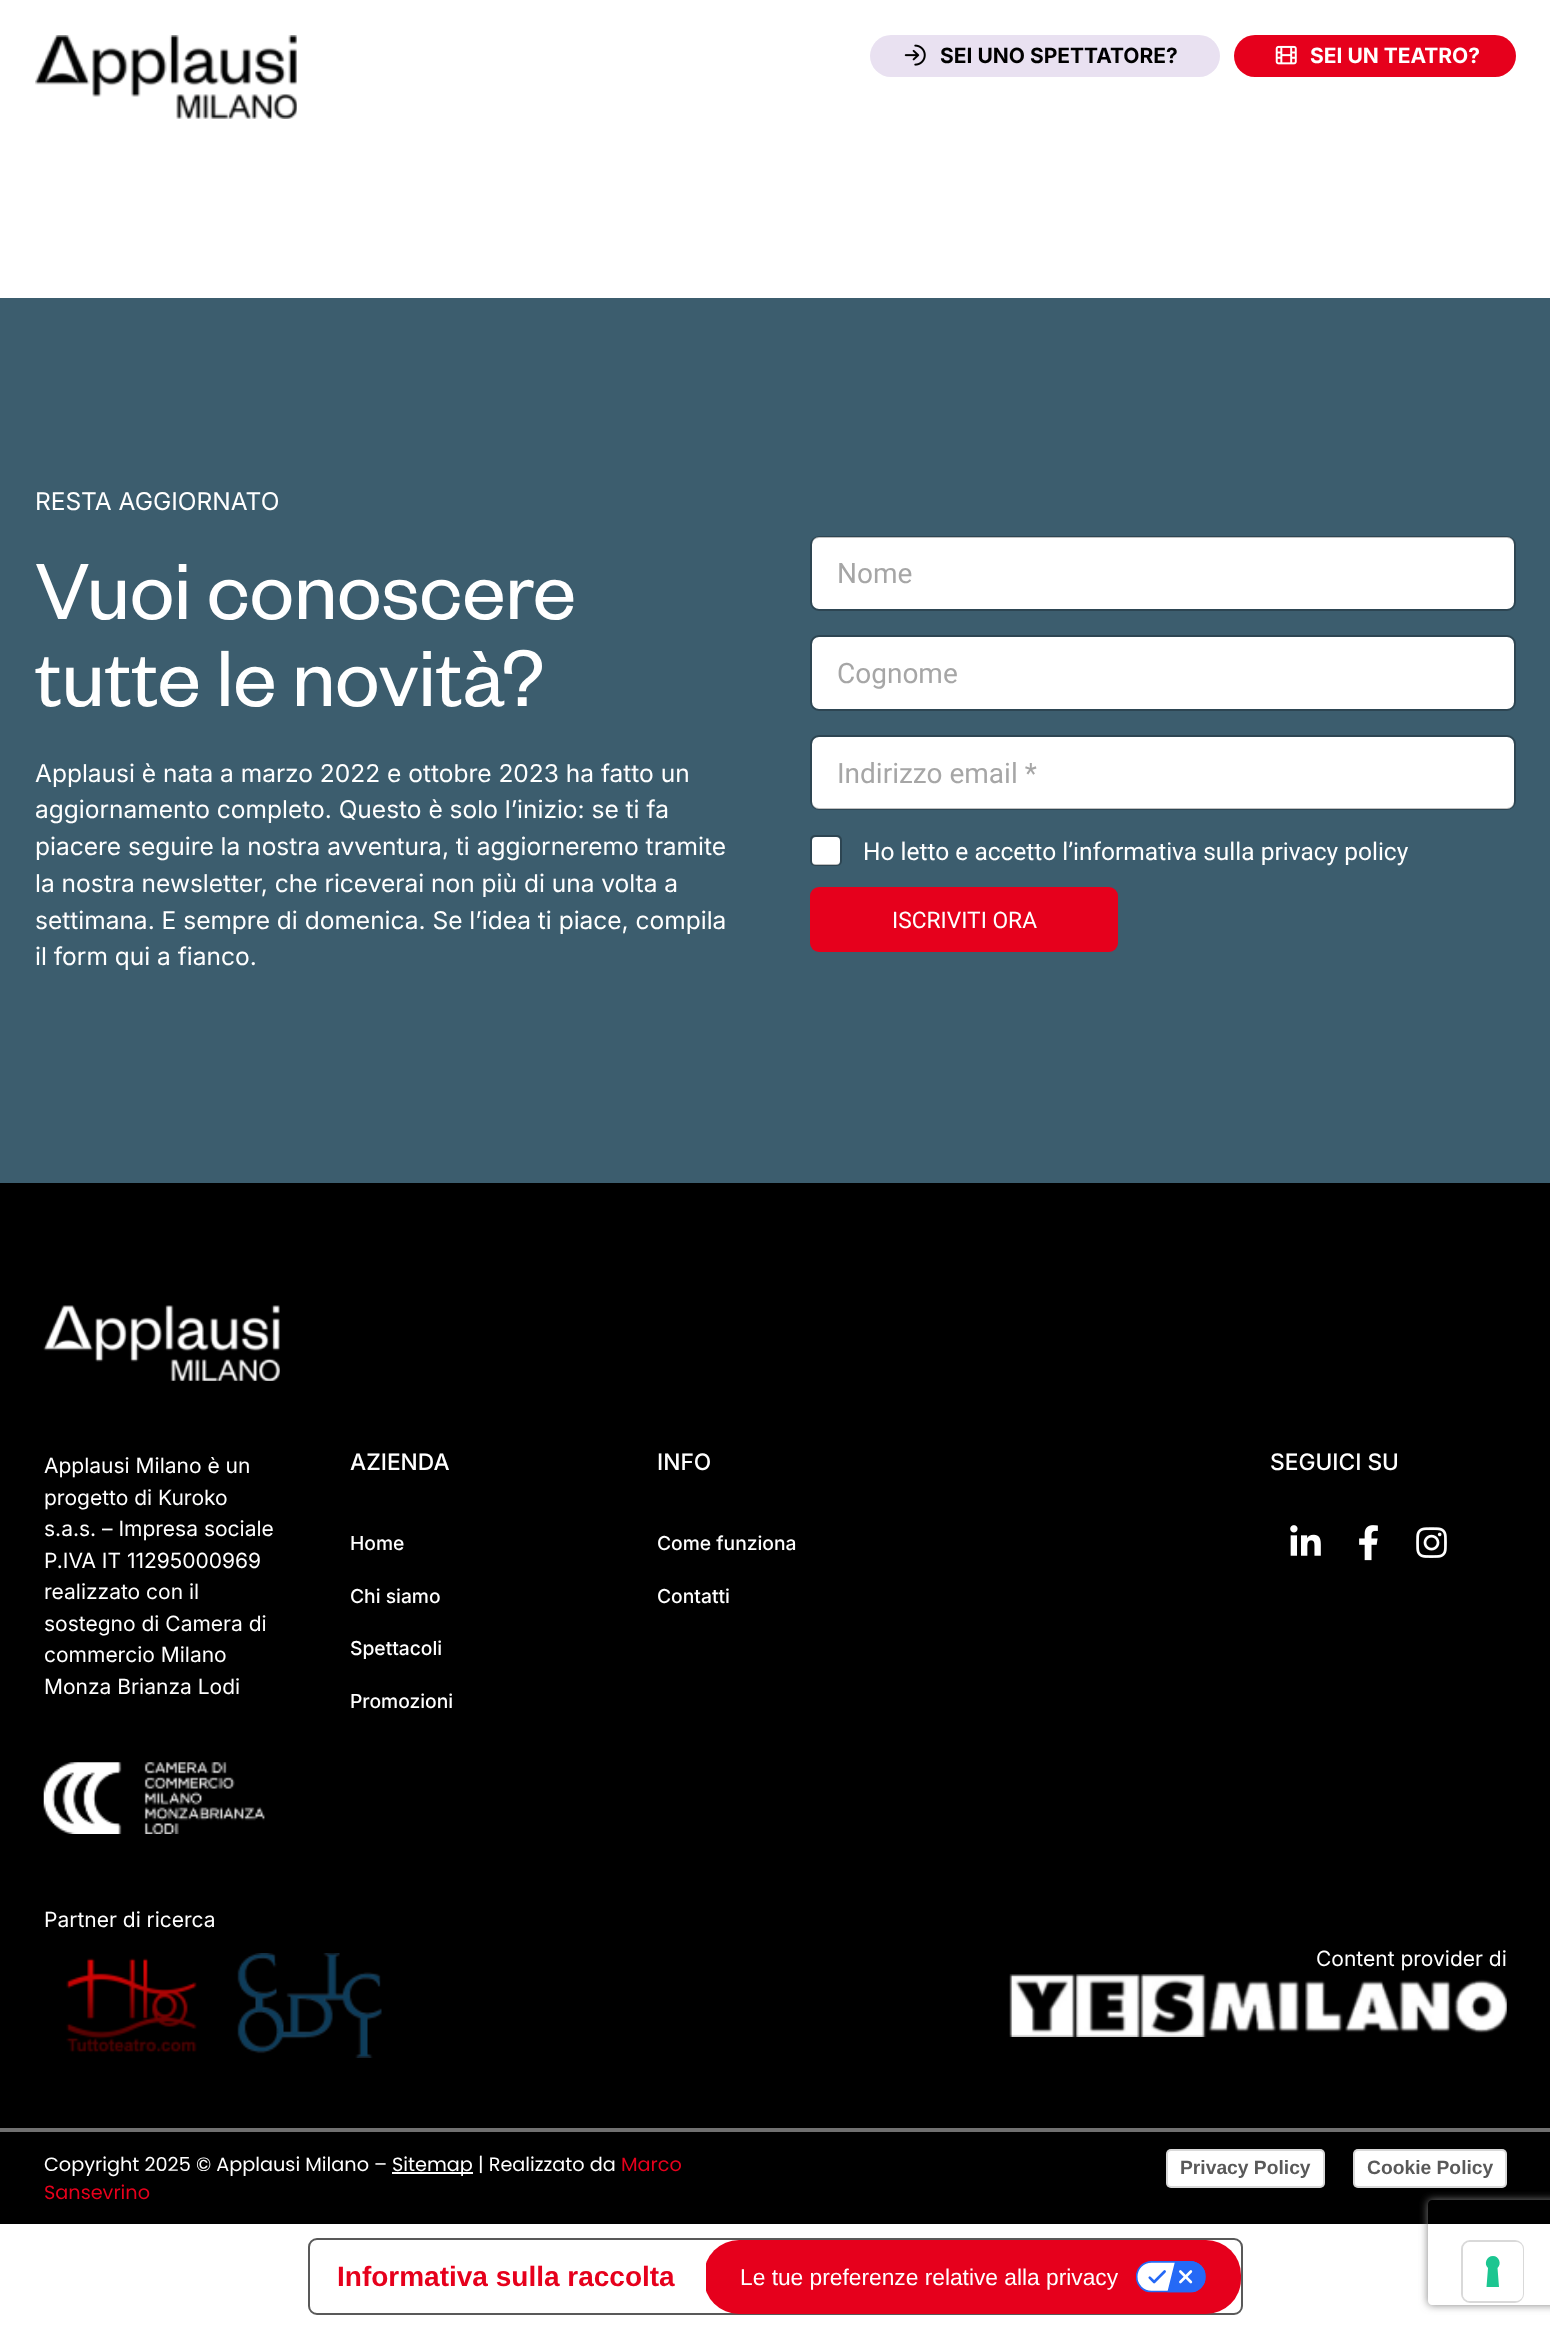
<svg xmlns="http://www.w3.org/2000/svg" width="1550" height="2328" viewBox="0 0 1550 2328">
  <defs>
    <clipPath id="clip1"><path d="M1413 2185H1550V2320H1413ZM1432 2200H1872C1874 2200 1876 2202 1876 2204V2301C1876 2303 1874 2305 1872 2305H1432C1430 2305 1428 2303 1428 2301V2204C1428 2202 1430 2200 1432 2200Z" clip-rule="evenodd"/></clipPath>
    <filter id="blur1" x="-50%" y="-200%" width="200%" height="500%"><feGaussianBlur stdDeviation="4.5"/></filter>
  </defs>
  <rect width="100%" height="100%" fill="#ffffff"/>
  <image x="35" y="35" width="262" height="84" href="img1.png"/>
  <rect x="870" y="35" width="350" height="42" rx="21" fill="#e9e1f1"/>
  <image x="904" y="44" width="22" height="22" href="img2.png"/>
  <text x="940" y="63" font-family="Inter" font-size="21" font-weight="bold" fill="#000000">SEI UNO SPETTATORE?</text>
  <rect x="1234" y="35" width="282" height="42" rx="21" fill="#e6001c"/>
  <image x="1275" y="45" width="22" height="20" href="img3.png"/>
  <text x="1310" y="63" font-family="Inter" font-size="21" font-weight="bold" fill="#ffffff">SEI UN TEATRO?</text>
  <rect x="0" y="298" width="1550" height="885" fill="#3c5d6e"/>
  <text x="35" y="510" font-family="Inter" font-size="24.5" fill="#ffffff">RESTA AGGIORNATO</text>
  <text x="35" y="619" font-family="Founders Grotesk" font-size="87.5" fill="#ffffff">Vuoi conoscere</text>
  <text x="35" y="706" font-family="Founders Grotesk" font-size="87.5" fill="#ffffff">tutte le novità?</text>
  <text x="35" y="782" font-family="Inter" font-size="24.5" fill="#ffffff">Applausi è nata a marzo 2022 e ottobre 2023 ha fatto un</text>
  <text x="35" y="818" font-family="Inter" font-size="24.5" fill="#ffffff">aggiornamento completo. Questo è solo l’inizio: se ti fa</text>
  <text x="35" y="855" font-family="Inter" font-size="24.5" fill="#ffffff">piacere seguire la nostra avventura, ti aggiorneremo tramite</text>
  <text x="35" y="892" font-family="Inter" font-size="24.5" fill="#ffffff">la nostra newsletter, che riceverai non più di una volta a</text>
  <text x="35" y="929" font-family="Inter" font-size="24.5" fill="#ffffff">settimana. E sempre di domenica. Se l’idea ti piace, compila</text>
  <text x="35" y="965" font-family="Inter" font-size="24.5" fill="#ffffff">il form qui a fianco.</text>
  <rect x="812" y="537" width="702" height="72" rx="7" fill="#ffffff"/>
  <rect x="811" y="537" width="704" height="73" rx="8" fill="none" stroke="#000000" stroke-opacity="0.25" stroke-width="2"/>
  <text x="837" y="583" font-family="Roboto" font-size="28" fill="#a6a6a6">Nome</text>
  <rect x="812" y="637" width="702" height="72" rx="7" fill="#ffffff"/>
  <rect x="811" y="636" width="704" height="74" rx="8" fill="none" stroke="#000000" stroke-opacity="0.25" stroke-width="2"/>
  <text x="837" y="683" font-family="Roboto" font-size="28" fill="#a6a6a6">Cognome</text>
  <rect x="812" y="737" width="702" height="72" rx="7" fill="#ffffff"/>
  <rect x="811" y="736" width="704" height="73" rx="8" fill="none" stroke="#000000" stroke-opacity="0.25" stroke-width="2"/>
  <text x="837" y="783" font-family="Roboto" font-size="28" fill="#a6a6a6">Indirizzo email *</text>
  <rect x="812" y="837" width="28" height="28" rx="4" fill="#ffffff"/>
  <rect x="811" y="836" width="30" height="29" rx="4" fill="none" stroke="#000000" stroke-opacity="0.25" stroke-width="2"/>
  <text x="863" y="860" font-family="Roboto" font-size="24.5" fill="#ffffff">Ho letto e accetto l’informativa sulla privacy policy</text>
  <rect x="810" y="887" width="308" height="65" rx="9" fill="#e6001c"/>
  <text x="892" y="928" font-family="Roboto" font-size="22.75" fill="#ffffff">ISCRIVITI ORA</text>
  <rect x="0" y="1183" width="1550" height="945" fill="#000000"/>
  <image x="43" y="1305" width="237" height="76" href="img4.png"/>
  <text x="44" y="1473" font-family="Inter" font-size="21" fill="#ffffff">Applausi Milano è un</text>
  <text x="44" y="1505" font-family="Inter" font-size="21" fill="#ffffff">progetto di Kuroko</text>
  <text x="44" y="1536" font-family="Inter" font-size="21" fill="#ffffff">s.a.s. – Impresa sociale</text>
  <text x="44" y="1568" font-family="Inter" font-size="21" fill="#ffffff">P.IVA IT 11295000969</text>
  <text x="44" y="1599" font-family="Inter" font-size="21" fill="#ffffff">realizzato con il</text>
  <text x="44" y="1631" font-family="Inter" font-size="21" fill="#ffffff">sostegno di Camera di</text>
  <text x="44" y="1662" font-family="Inter" font-size="21" fill="#ffffff">commercio Milano</text>
  <text x="44" y="1694" font-family="Inter" font-size="21" fill="#ffffff">Monza Brianza Lodi</text>
  <image x="43" y="1762" width="222" height="72" href="img5.png"/>
  <text x="350" y="1470" font-family="Inter" font-size="22.75" font-weight="500" fill="#ffffff">AZIENDA</text>
  <text x="350" y="1550" font-family="Inter" font-size="19.25" font-weight="500" fill="#ffffff">Home</text>
  <text x="350" y="1603" font-family="Inter" font-size="19.25" font-weight="500" fill="#ffffff">Chi siamo</text>
  <text x="350" y="1655" font-family="Inter" font-size="19.25" font-weight="500" fill="#ffffff">Spettacoli</text>
  <text x="350" y="1708" font-family="Inter" font-size="19.25" font-weight="500" fill="#ffffff">Promozioni</text>
  <text x="657" y="1470" font-family="Inter" font-size="22.75" font-weight="500" fill="#ffffff">INFO</text>
  <text x="657" y="1550" font-family="Inter" font-size="19.25" font-weight="500" fill="#ffffff">Come funziona</text>
  <text x="657" y="1603" font-family="Inter" font-size="19.25" font-weight="500" fill="#ffffff">Contatti</text>
  <text x="1270" y="1470" font-family="Inter" font-size="22.75" font-weight="500" fill="#ffffff">SEGUICI SU</text>
  <image x="1290" y="1525" width="31" height="31" href="img6.png"/>
  <image x="1359" y="1525" width="19" height="36" href="img7.png"/>
  <image x="1416" y="1527" width="31" height="31" href="img8.png"/>
  <text x="44" y="1927" font-family="Inter" font-size="21" fill="#ffffff">Partner di ricerca</text>
  <image x="66" y="1958" width="131" height="95" href="img9.png"/>
  <image x="237" y="1953" width="145" height="105" href="img10.png"/>
  <text x="1316" y="1966" font-family="Inter" font-size="21" fill="#ffffff">Content provider di</text>
  <image x="1009" y="1974" width="498" height="63" href="img11.png"/>
  <rect x="0" y="2132" width="1550" height="92" fill="#000000"/>
  <rect x="0" y="2128" width="1550" height="4" fill="#707070"/>
  <text x="44" y="2171" font-family="Poppins" font-size="19.25" fill="#ffffff">Copyright 2025 © Applausi Milano –</text>
  <rect x="392" y="2172" width="81" height="2" fill="#ffffff"/>
  <text x="392" y="2171" font-family="Poppins" font-size="19.25" fill="#ffffff">Sitemap | Realizzato da</text>
  <text x="621" y="2171" font-family="Poppins" font-size="19.25" fill="#e6001c">Marco</text>
  <text x="44" y="2199" font-family="Poppins" font-size="19.25" fill="#e6001c">Sansevrino</text>
  <rect x="1166" y="2149" width="159" height="39" rx="5" fill="#ffffff"/>
  <rect x="1167" y="2150" width="157" height="37" rx="4" fill="none" stroke="#000000" stroke-opacity="0.15" stroke-width="2"/>
  <text x="1180" y="2174" font-family="Liberation Sans" font-size="19.25" font-weight="bold" fill="#595959">Privacy Policy</text>
  <rect x="1353" y="2149" width="154" height="39" rx="5" fill="#ffffff"/>
  <rect x="1354" y="2150" width="152" height="37" rx="4" fill="none" stroke="#000000" stroke-opacity="0.15" stroke-width="2"/>
  <text x="1367" y="2174" font-family="Liberation Sans" font-size="19.25" font-weight="bold" fill="#595959">Cookie Policy</text>
  <g clip-path="url(#clip1)">
    <rect x="1428" y="2200" width="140" height="105" rx="4" fill="#808080" filter="url(#blur1)"/>
  </g>
  <rect x="309" y="2239" width="933" height="75" rx="8" fill="none" stroke="#595959" stroke-width="2"/>
  <text x="337" y="2286" font-family="Liberation Sans" font-size="28" font-weight="bold" fill="#e6001c">Informativa sulla raccolta</text>
  <rect x="704" y="2240" width="537" height="74" rx="35" fill="#e6001c"/>
  <rect x="704" y="2258" width="2" height="38" fill="#ffffff"/>
  <text x="740" y="2285" font-family="Liberation Sans" font-size="22.75" fill="#ffffff">Le tue preferenze relative alla privacy</text>
  <image x="1136" y="2261" width="70" height="32" href="img12.png"/>
  <rect x="1462" y="2241" width="61" height="61" rx="8" fill="none" stroke="#d9d9d9" stroke-width="2"/>
  <rect x="1463" y="2242" width="60" height="59" rx="7" fill="#ffffff"/>
  <path d="M1493 2256C1499 2256 1502 2264 1497.5 2268L1499 2287H1486.5L1488 2268C1483.5 2264 1486.5 2256 1493 2256Z" fill="#1cc691" fill-rule="evenodd"/>
</svg>
